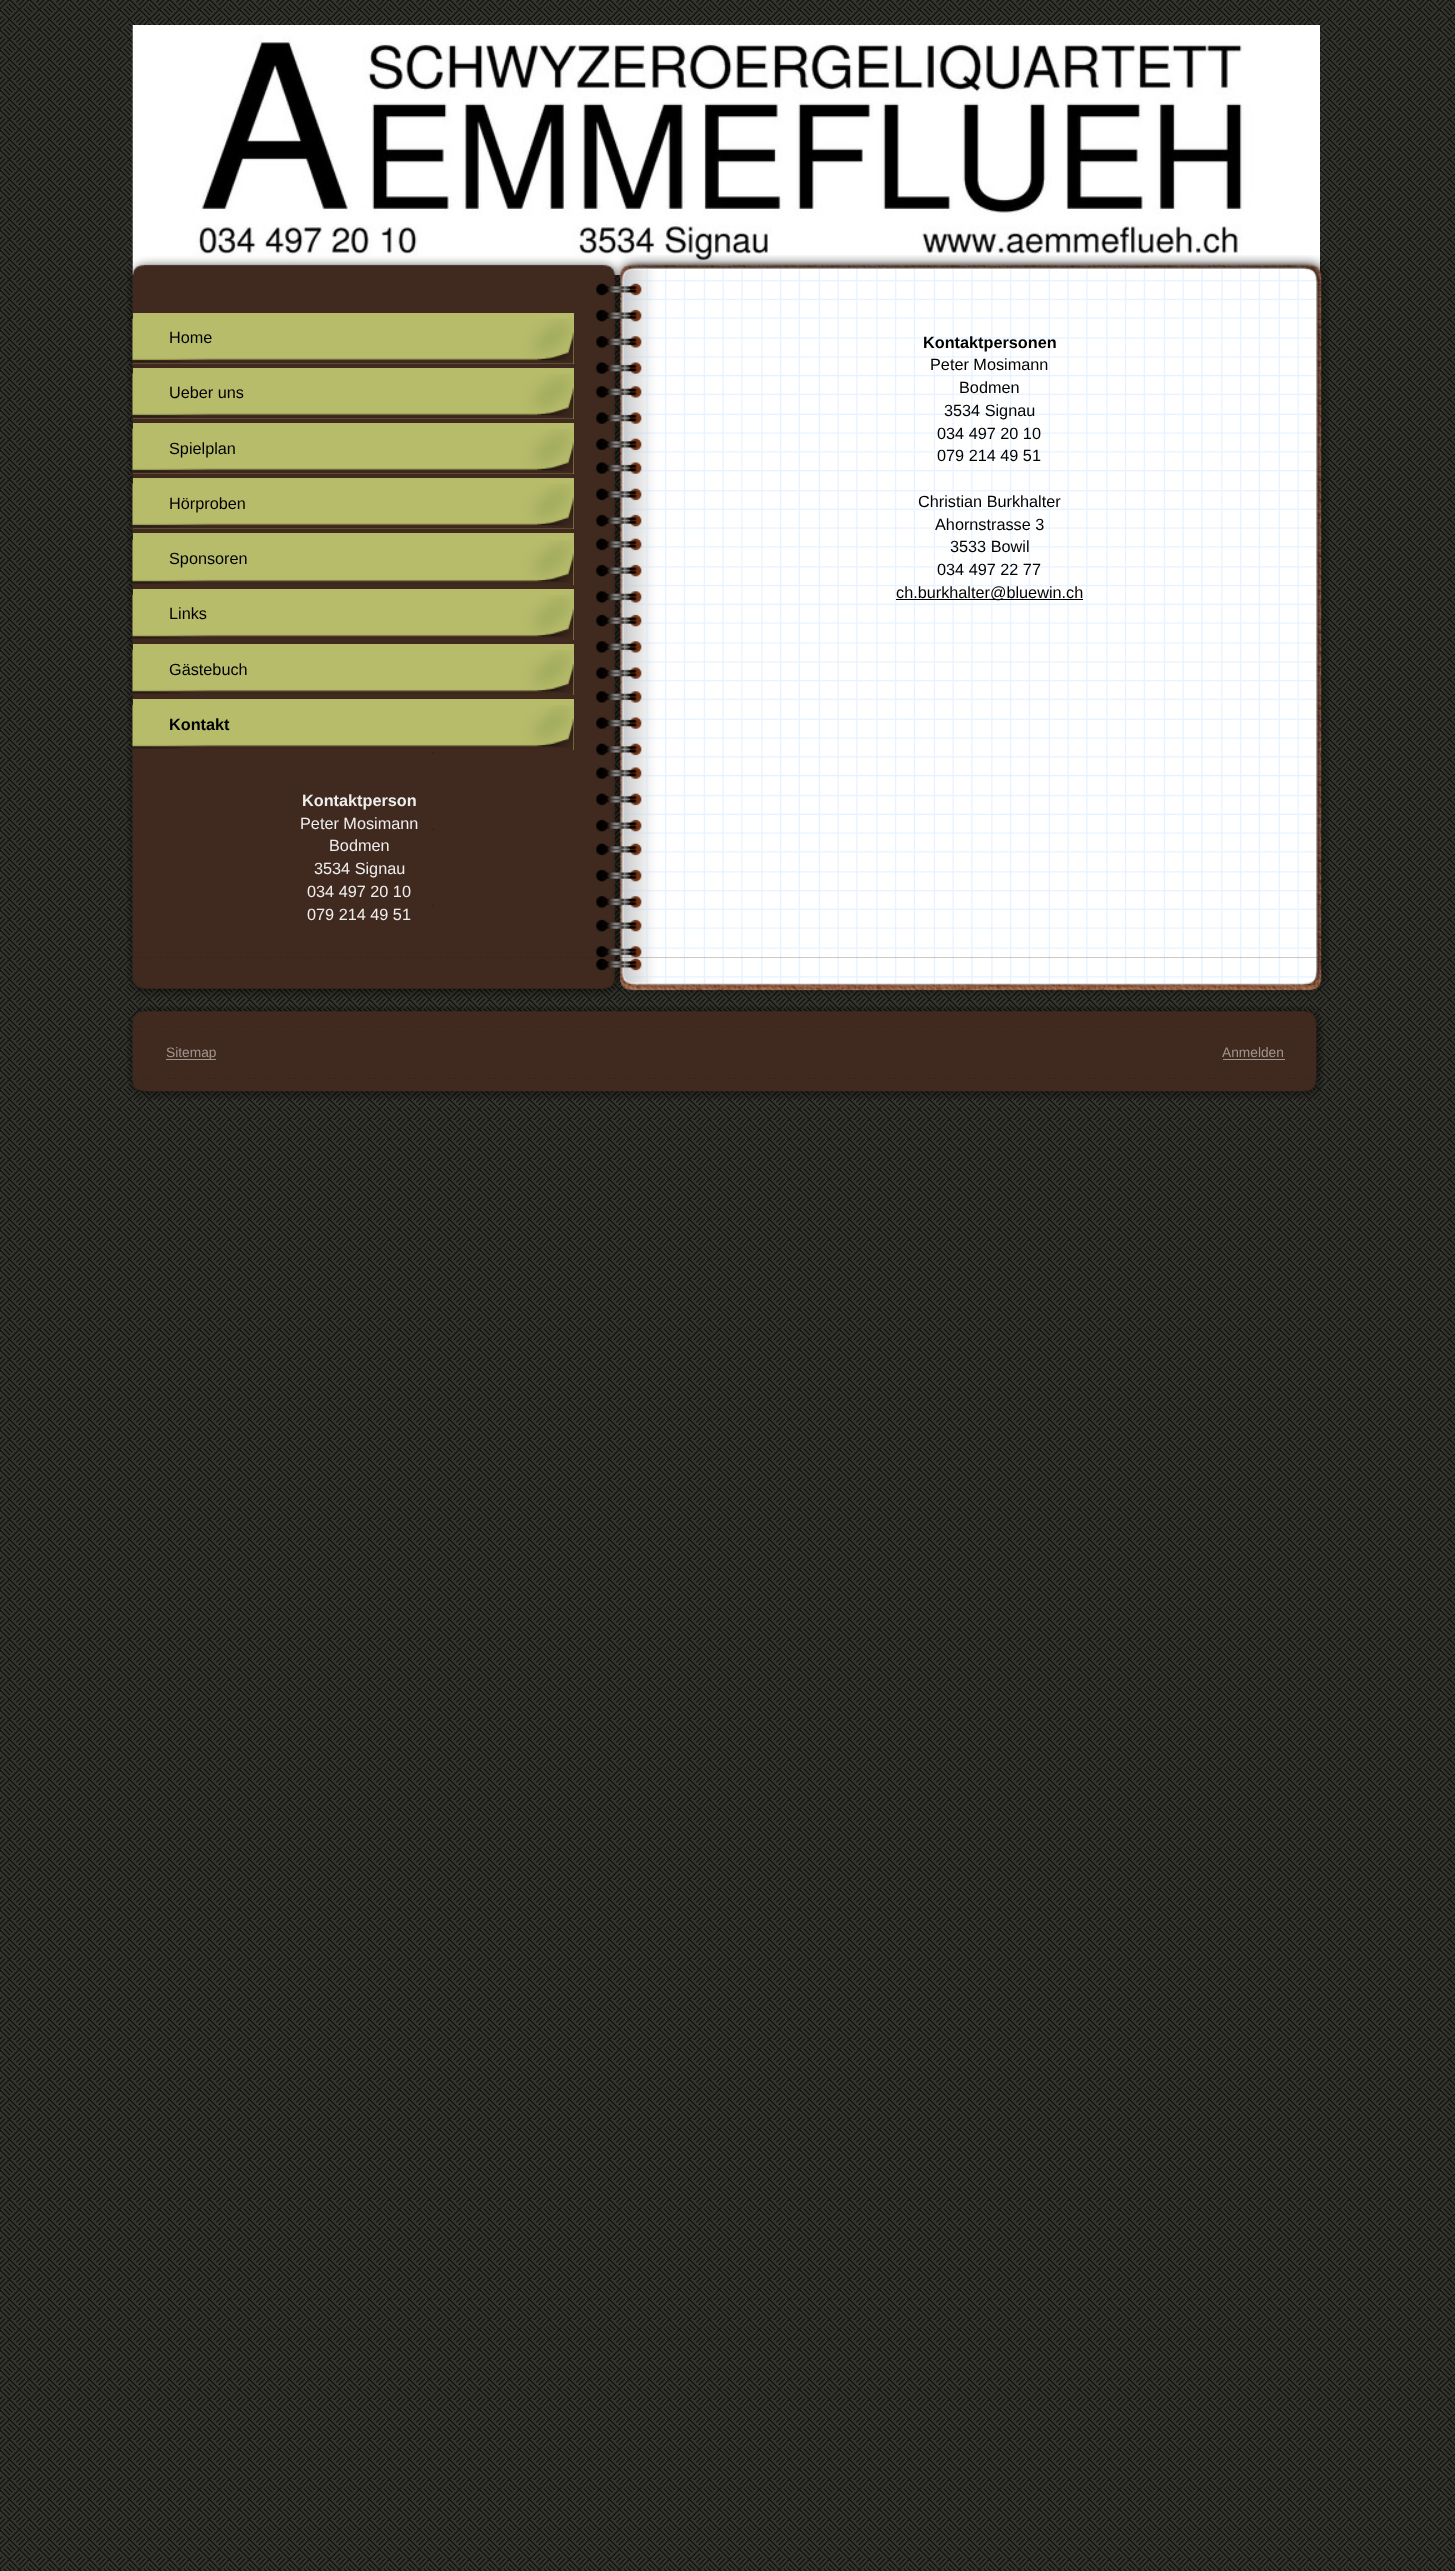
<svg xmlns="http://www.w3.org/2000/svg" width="1455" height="2571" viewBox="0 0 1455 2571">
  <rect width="100%" height="100%" fill="#35352f"/>
  <image x="0" y="0" width="1455" height="2571" href="img1.png"/>
  <image x="132" y="25" width="1188" height="250" href="img2.png"/>
  <image x="127" y="255" width="1202" height="45" href="img3.png"/>
  <image x="127" y="300" width="1202" height="658" href="img4.png"/>
  <rect x="133" y="313" width="441" height="51" fill="#b7bc6a"/>
  <image x="132" y="318" width="442" height="46" href="img5.png"/>
  <text x="169" y="343" font-family="Liberation Sans" font-size="16.25" fill="#000000">Home</text>
  <rect x="133" y="368" width="441" height="51" fill="#b7bc6a"/>
  <image x="132" y="373" width="442" height="46" href="img6.png"/>
  <text x="169" y="398" font-family="Liberation Sans" font-size="16.25" fill="#000000">Ueber uns</text>
  <rect x="133" y="423" width="441" height="51" fill="#b7bc6a"/>
  <image x="132" y="428" width="442" height="46" href="img7.png"/>
  <text x="169" y="454" font-family="Liberation Sans" font-size="16.25" fill="#000000">Spielplan</text>
  <rect x="133" y="478" width="441" height="51" fill="#b7bc6a"/>
  <image x="132" y="483" width="442" height="46" href="img8.png"/>
  <text x="169" y="509" font-family="Liberation Sans" font-size="16.25" fill="#000000">Hörproben</text>
  <rect x="133" y="533" width="441" height="52" fill="#b7bc6a"/>
  <image x="132" y="540" width="442" height="45" href="img9.png"/>
  <text x="169" y="564" font-family="Liberation Sans" font-size="16.25" fill="#000000">Sponsoren</text>
  <rect x="133" y="589" width="441" height="51" fill="#b7bc6a"/>
  <image x="132" y="595" width="442" height="45" href="img10.png"/>
  <text x="169" y="619" font-family="Liberation Sans" font-size="16.25" fill="#000000">Links</text>
  <rect x="133" y="644" width="441" height="51" fill="#b7bc6a"/>
  <image x="132" y="650" width="442" height="45" href="img11.png"/>
  <text x="169" y="675" font-family="Liberation Sans" font-size="16.25" fill="#000000">Gästebuch</text>
  <rect x="133" y="699" width="441" height="51" fill="#b7bc6a"/>
  <image x="132" y="705" width="442" height="45" href="img12.png"/>
  <text x="169" y="730" font-family="Liberation Sans" font-size="16.25" font-weight="bold" fill="#000000">Kontakt</text>
  <text x="302" y="806" font-family="Liberation Sans" font-size="16.25" font-weight="bold" fill="#eeeeee">Kontaktperson</text>
  <text x="300" y="829" font-family="Liberation Sans" font-size="16.25" fill="#eeeeee">Peter Mosimann</text>
  <text x="329" y="851" font-family="Liberation Sans" font-size="16.25" fill="#eeeeee">Bodmen</text>
  <text x="314" y="874" font-family="Liberation Sans" font-size="16.25" fill="#eeeeee">3534 Signau</text>
  <text x="307" y="897" font-family="Liberation Sans" font-size="16.25" fill="#eeeeee">034 497 20 10</text>
  <text x="307" y="920" font-family="Liberation Sans" font-size="16.25" fill="#eeeeee">079 214 49 51</text>
  <text x="923" y="348" font-family="Liberation Sans" font-size="16.25" font-weight="bold" fill="#000000">Kontaktpersonen</text>
  <text x="930" y="370" font-family="Liberation Sans" font-size="16.25" fill="#000000">Peter Mosimann</text>
  <text x="959" y="393" font-family="Liberation Sans" font-size="16.25" fill="#000000">Bodmen</text>
  <text x="944" y="416" font-family="Liberation Sans" font-size="16.25" fill="#000000">3534 Signau</text>
  <text x="937" y="439" font-family="Liberation Sans" font-size="16.25" fill="#000000">034 497 20 10</text>
  <text x="937" y="461" font-family="Liberation Sans" font-size="16.25" fill="#000000">079 214 49 51</text>
  <text x="918" y="507" font-family="Liberation Sans" font-size="16.25" fill="#000000">Christian Burkhalter</text>
  <text x="935" y="530" font-family="Liberation Sans" font-size="16.25" fill="#000000">Ahornstrasse 3</text>
  <text x="950" y="552" font-family="Liberation Sans" font-size="16.25" fill="#000000">3533 Bowil</text>
  <text x="937" y="575" font-family="Liberation Sans" font-size="16.25" fill="#000000">034 497 22 77</text>
  <rect x="896" y="599" width="187" height="1" fill="#000000"/>
  <text x="896" y="598" font-family="Liberation Sans" font-size="16.25" fill="#000000">ch.burkhalter@bluewin.ch</text>
  <image x="127" y="957" width="1202" height="40" href="img13.png"/>
  <image x="128" y="1006" width="1195" height="21" href="img14.png"/>
  <image x="127" y="1026" width="1197" height="53" href="img15.png"/>
  <rect x="166" y="1059" width="50" height="1" fill="#a0948f"/>
  <text x="166" y="1057" font-family="Liberation Sans" font-size="13.75" fill="#a0948f">Sitemap</text>
  <text x="1222" y="1057" font-family="Liberation Sans" font-size="13.75" fill="#a0948f">Anmelden</text>
  <rect x="1223" y="1059" width="62" height="1" fill="#a0948f"/>
  <image x="128" y="1079" width="1195" height="20" href="img16.png"/>
</svg>
